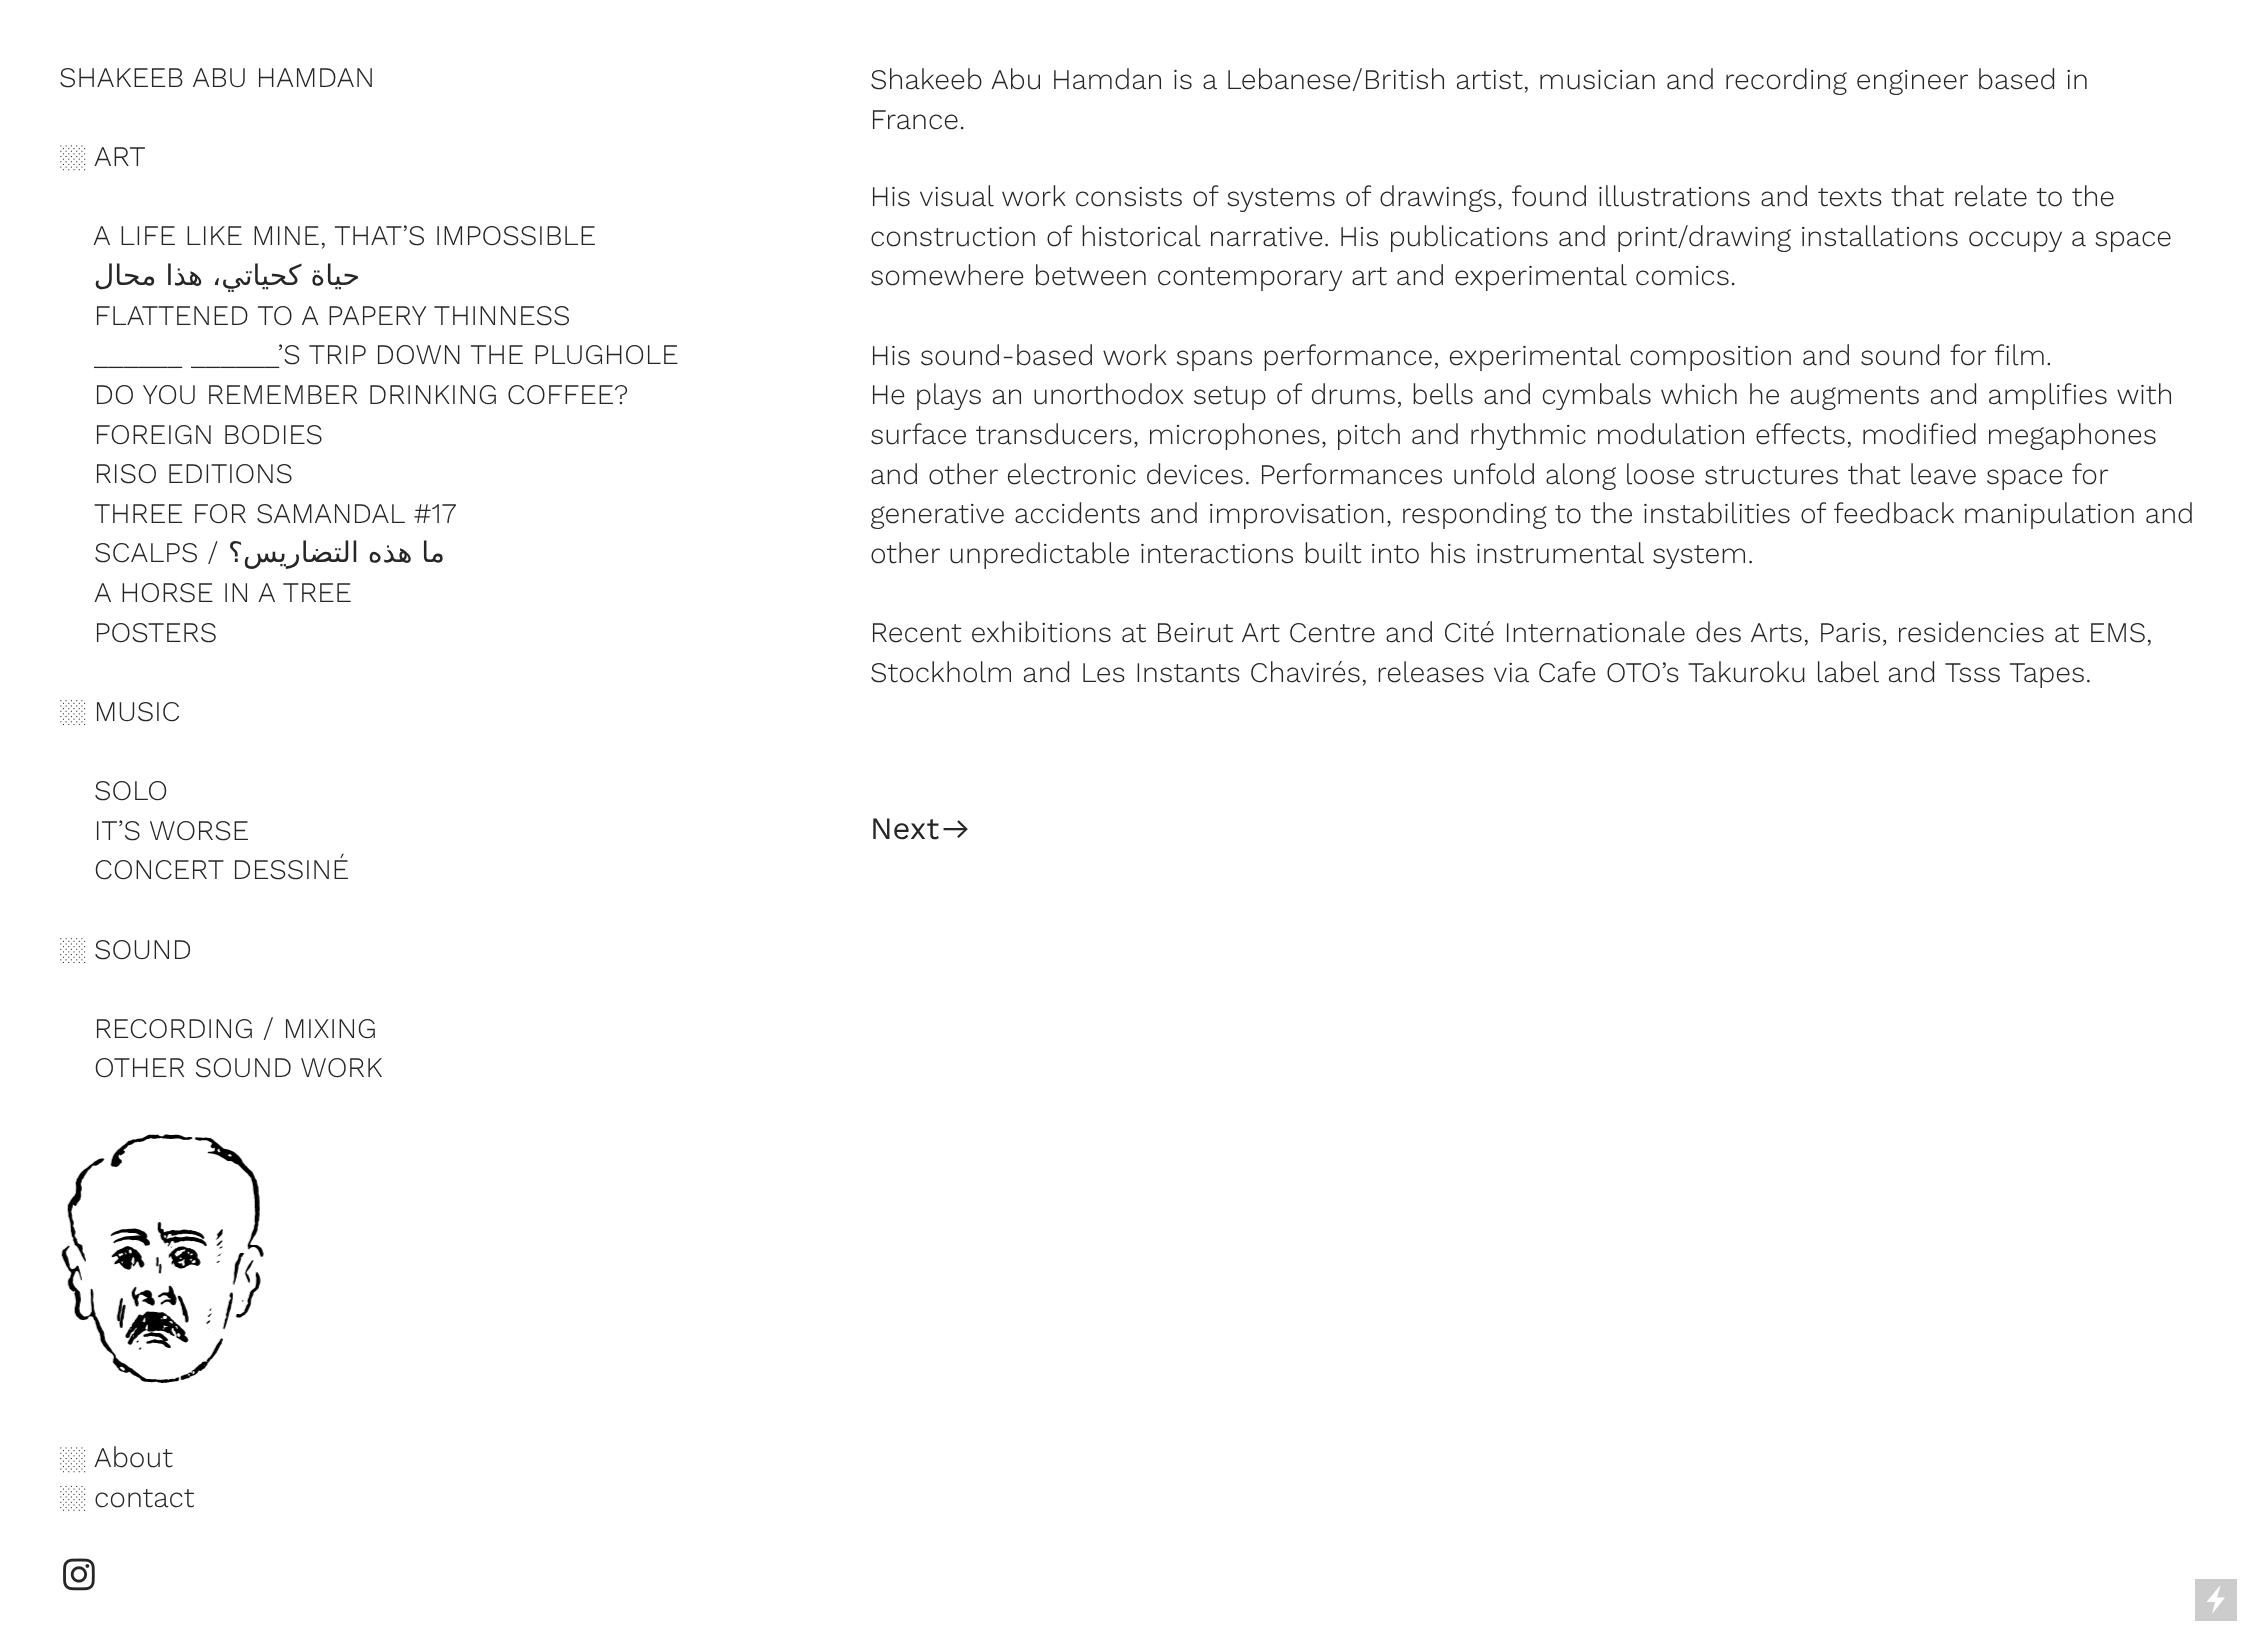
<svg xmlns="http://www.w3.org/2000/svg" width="2254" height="1638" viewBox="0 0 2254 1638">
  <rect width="100%" height="100%" fill="#ffffff"/>
  <text x="59" y="87" font-family="Work Sans" font-size="28.3" font-weight="300" fill="#262626">SHAKEEB ABU HAMDAN</text>
  <image x="60" y="145" width="26" height="26" href="img1.png"/>
  <text x="94" y="166" font-family="Work Sans" font-size="28.3" font-weight="300" fill="#262626">ART</text>
  <text x="93" y="245" font-family="Work Sans" font-size="28.3" font-weight="300" fill="#262626">A LIFE LIKE MINE, THAT’S IMPOSSIBLE</text>
  <text x="360" y="285" font-family="DejaVu Sans" font-size="28.3" direction="rtl" fill="#262626">حياة كحياتي، هذا محال</text>
  <text x="94" y="325" font-family="Work Sans" font-size="28.3" font-weight="300" fill="#262626">FLATTENED TO A PAPERY THINNESS</text>
  <text x="94" y="364" word-spacing="-0.1" font-family="Work Sans" font-size="28.3" font-weight="300" fill="#262626">______ ______’S TRIP DOWN THE PLUGHOLE</text>
  <text x="94" y="404" font-family="Work Sans" font-size="28.3" font-weight="300" fill="#262626">DO YOU REMEMBER DRINKING COFFEE?</text>
  <text x="94" y="444" font-family="Work Sans" font-size="28.3" font-weight="300" fill="#262626">FOREIGN BODIES</text>
  <text x="94" y="483" font-family="Work Sans" font-size="28.3" font-weight="300" fill="#262626">RISO EDITIONS</text>
  <text x="94" y="523" font-family="Work Sans" font-size="28.3" font-weight="300" fill="#262626">THREE FOR SAMANDAL #17</text>
  <text x="94" y="562" font-family="Work Sans" font-size="28.3" font-weight="300" fill="#262626">SCALPS /</text>
  <text x="445" y="562" word-spacing="-0.1" font-family="DejaVu Sans" font-size="28.3" direction="rtl" fill="#262626">ما هذه التضاريس؟</text>
  <text x="94" y="602" font-family="Work Sans" font-size="28.3" font-weight="300" fill="#262626">A HORSE IN A TREE</text>
  <text x="94" y="642" font-family="Work Sans" font-size="28.3" font-weight="300" fill="#262626">POSTERS</text>
  <image x="60" y="700" width="26" height="25" href="img2.png"/>
  <text x="94" y="721" font-family="Work Sans" font-size="28.3" font-weight="300" fill="#262626">MUSIC</text>
  <text x="94" y="800" font-family="Work Sans" font-size="28.3" font-weight="300" fill="#262626">SOLO</text>
  <text x="94" y="840" font-family="Work Sans" font-size="28.3" font-weight="300" fill="#262626">IT’S WORSE</text>
  <text x="94" y="879" font-family="Work Sans" font-size="28.3" font-weight="300" fill="#262626">CONCERT DESSINÉ</text>
  <image x="60" y="938" width="26" height="25" href="img2.png"/>
  <text x="94" y="959" font-family="Work Sans" font-size="28.3" font-weight="300" fill="#262626">SOUND</text>
  <text x="94" y="1038" font-family="Work Sans" font-size="28.3" font-weight="300" fill="#262626">RECORDING / MIXING</text>
  <text x="94" y="1077" font-family="Work Sans" font-size="28.3" font-weight="300" fill="#262626">OTHER SOUND WORK</text>
  <image x="61" y="1134" width="203" height="249" href="img3.png"/>
  <image x="60" y="1447" width="26" height="26" href="img1.png"/>
  <text x="94" y="1467" font-family="Work Sans" font-size="28.3" font-weight="300" fill="#262626">About</text>
  <image x="60" y="1485" width="26" height="26" href="img4.png"/>
  <text x="94" y="1507" font-family="Work Sans" font-size="28.3" font-weight="300" fill="#262626">contact</text>
  <image x="63" y="1558" width="32" height="33" href="img5.png"/>
  <text x="870" y="89" font-family="Work Sans" font-size="28.3" font-weight="300" fill="#262626">Shakeeb Abu Hamdan is a Lebanese/British artist, musician and recording engineer based in</text>
  <text x="870" y="129" font-family="Work Sans" font-size="28.3" font-weight="300" fill="#262626">France.</text>
  <text x="870" y="206" font-family="Work Sans" font-size="28.3" font-weight="300" fill="#262626">His visual work consists of systems of drawings, found illustrations and texts that relate to the</text>
  <text x="870" y="246" word-spacing="-0.1" font-family="Work Sans" font-size="28.3" font-weight="300" fill="#262626">construction of historical narrative. His publications and print/drawing installations occupy a space</text>
  <text x="870" y="285" word-spacing="-0.1" font-family="Work Sans" font-size="28.3" font-weight="300" fill="#262626">somewhere between contemporary art and experimental comics.</text>
  <text x="870" y="365" word-spacing="-0.1" font-family="Work Sans" font-size="28.3" font-weight="300" fill="#262626">His sound-based work spans performance, experimental composition and sound for film.</text>
  <text x="870" y="404" font-family="Work Sans" font-size="28.3" font-weight="300" fill="#262626">He plays an unorthodox setup of drums, bells and cymbals which he augments and amplifies with</text>
  <text x="870" y="444" word-spacing="-0.25" font-family="Work Sans" font-size="28.3" font-weight="300" fill="#262626">surface transducers, microphones, pitch and rhythmic modulation effects, modified megaphones</text>
  <text x="870" y="484" word-spacing="-0.25" font-family="Work Sans" font-size="28.3" font-weight="300" fill="#262626">and other electronic devices. Performances unfold along loose structures that leave space for</text>
  <text x="870" y="523" word-spacing="-0.1" font-family="Work Sans" font-size="28.3" font-weight="300" fill="#262626">generative accidents and improvisation, responding to the instabilities of feedback manipulation and</text>
  <text x="870" y="563" word-spacing="-0.25" font-family="Work Sans" font-size="28.3" font-weight="300" fill="#262626">other unpredictable interactions built into his instrumental system.</text>
  <text x="870" y="642" font-family="Work Sans" font-size="28.3" font-weight="300" fill="#262626">Recent exhibitions at Beirut Art Centre and Cité Internationale des Arts, Paris, residencies at EMS,</text>
  <text x="870" y="682" font-family="Work Sans" font-size="28.3" font-weight="300" fill="#262626">Stockholm and Les Instants Chavirés, releases via Cafe OTO’s Takuroku label and Tsss Tapes.</text>
  <text x="870" y="839" font-family="Work Sans" font-size="31" fill="#262626">Next</text>
  <image x="943" y="820" width="25" height="18" href="img6.png"/>
  <rect x="2195" y="1579" width="42" height="42" fill="#cccccc"/>
  <path d="M2225 1597.5H2217L2220.5 1585L2206.5 1602H2215L2212 1614Z" fill="#ffffff"/>
</svg>
